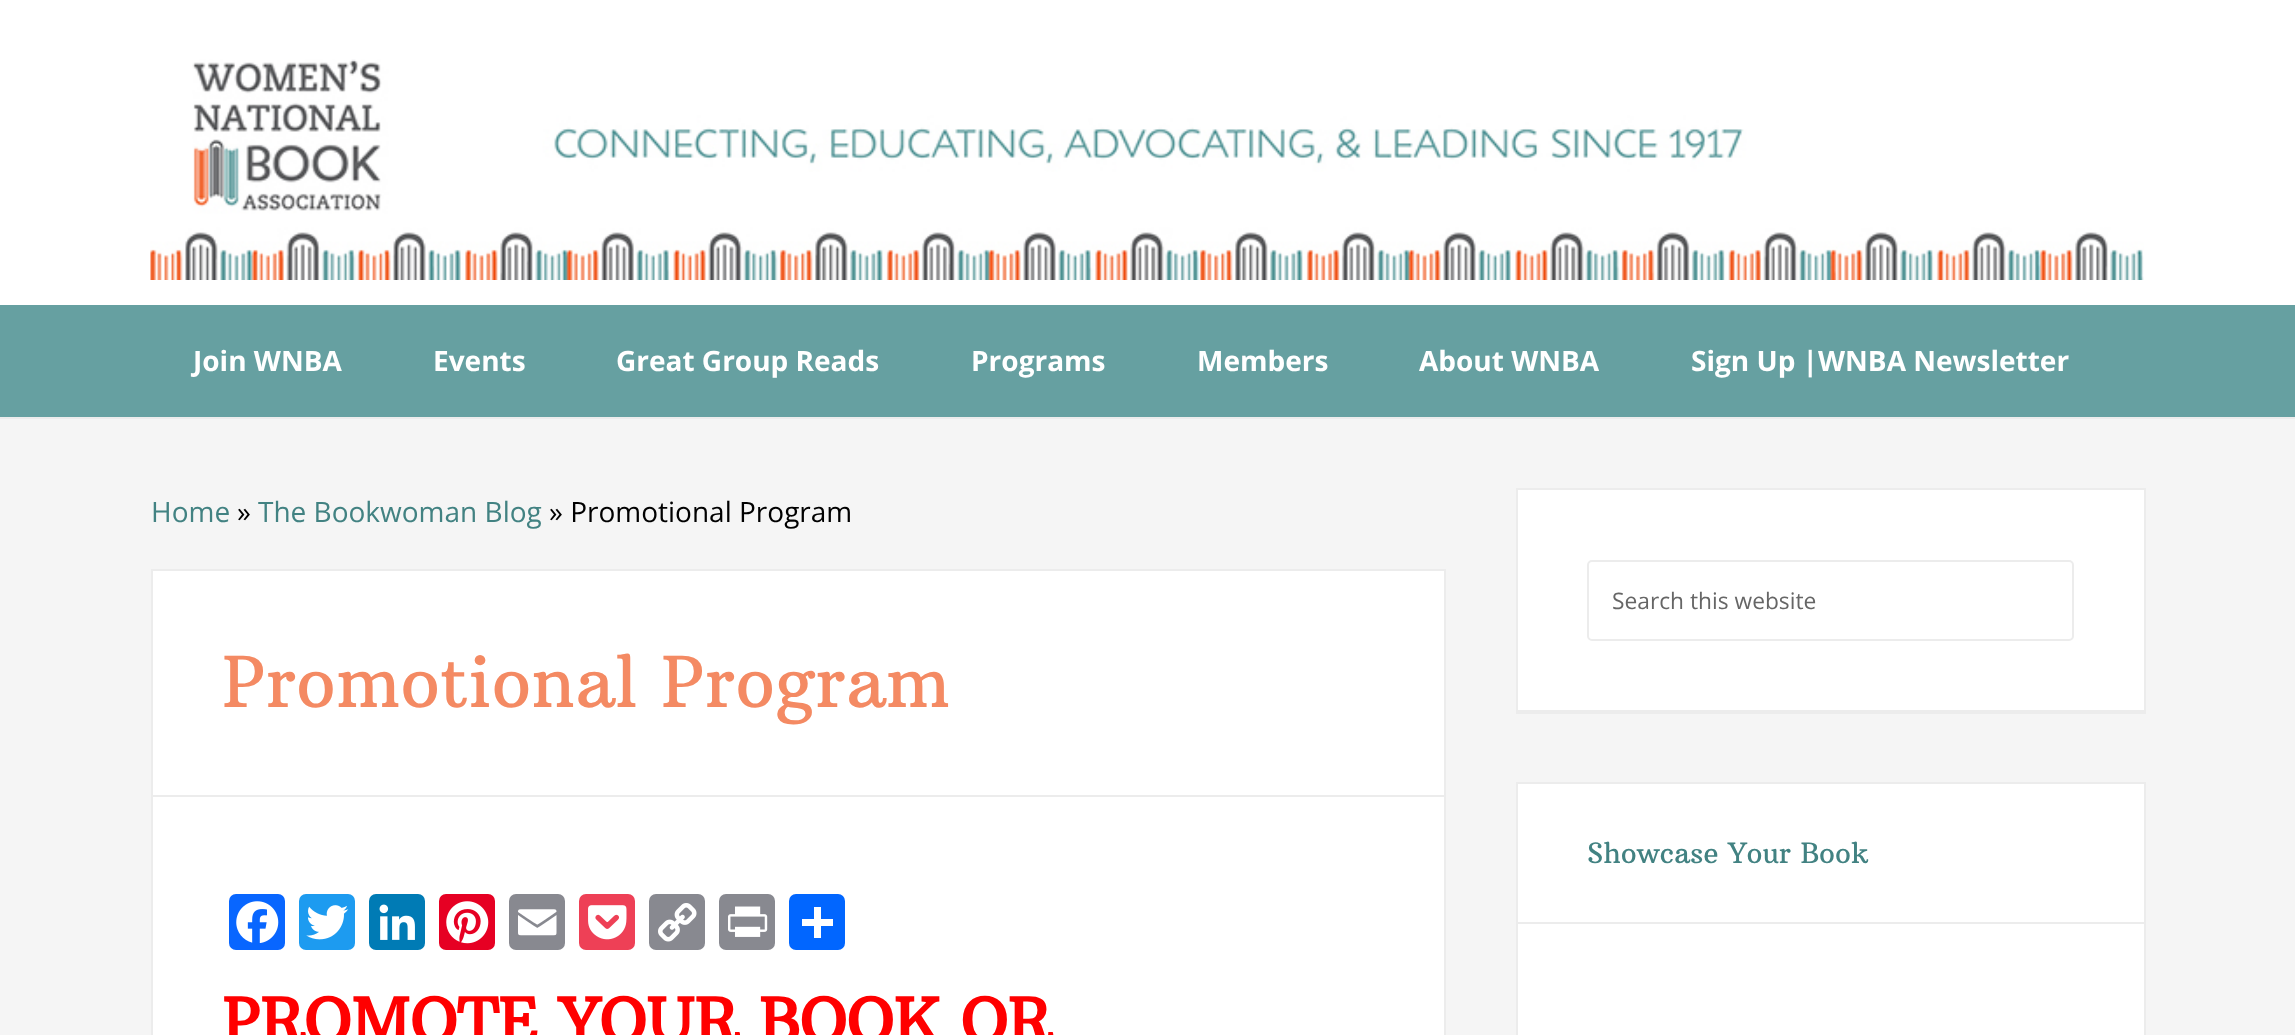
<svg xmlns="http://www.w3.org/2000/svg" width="2295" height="1035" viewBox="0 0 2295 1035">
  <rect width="100%" height="100%" fill="#ffffff"/>
  <image x="150" y="59" width="1994" height="221" href="img1.png"/>
  <rect x="0" y="305" width="2295" height="112" fill="#66a0a1"/>
  <text x="193" y="371" font-family="Open Sans" font-size="28" font-weight="bold" fill="#ffffff">Join WNBA</text>
  <text x="433" y="371" font-family="Open Sans" font-size="28" font-weight="bold" fill="#ffffff">Events</text>
  <text x="616" y="371" font-family="Open Sans" font-size="28" font-weight="bold" fill="#ffffff">Great Group Reads</text>
  <text x="971" y="371" font-family="Open Sans" font-size="28" font-weight="bold" fill="#ffffff">Programs</text>
  <text x="1197" y="371" font-family="Open Sans" font-size="28" font-weight="bold" fill="#ffffff">Members</text>
  <text x="1419" y="371" font-family="Open Sans" font-size="28" font-weight="bold" fill="#ffffff">About WNBA</text>
  <text x="1691" y="371" font-family="Open Sans" font-size="28" font-weight="bold" fill="#ffffff">Sign Up |WNBA Newsletter</text>
  <rect x="0" y="419" width="2295" height="616" fill="#f5f5f5"/>
  <rect x="0" y="417" width="2295" height="2" fill="#ececec"/>
  <text x="151" y="522" font-family="Open Sans" font-size="28" fill="#428282">Home</text>
  <text x="237" y="522" font-family="Open Sans" font-size="28" fill="#000000">»</text>
  <text x="258" y="522" font-family="Open Sans" font-size="28" fill="#428282">The Bookwoman Blog</text>
  <text x="549" y="522" font-family="Open Sans" font-size="28" fill="#000000">» Promotional Program</text>
  <rect x="152" y="570" width="1293" height="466" fill="#ffffff" stroke="#ececec" stroke-width="2"/>
  <rect x="152" y="795" width="1292" height="2" fill="#ececec"/>
  <text x="222" y="707" font-family="Arbutus Slab" font-size="70" fill="#f48a63">Promotional Program</text>
  <rect x="229" y="894" width="56" height="56" rx="7" fill="#0866ff"/>
  <image x="236" y="901" width="43" height="42" href="img2.png"/>
  <rect x="299" y="894" width="56" height="56" rx="7" fill="#1d9bf0"/>
  <image x="306" y="905" width="43" height="35" href="img3.png"/>
  <rect x="369" y="894" width="56" height="56" rx="7" fill="#007bb5"/>
  <image x="379" y="904" width="36" height="36" href="img4.png"/>
  <rect x="439" y="894" width="56" height="56" rx="7" fill="#e60023"/>
  <image x="446" y="901" width="43" height="43" href="img5.png"/>
  <rect x="509" y="894" width="56" height="56" rx="7" fill="#888990"/>
  <image x="518" y="909" width="39" height="27" href="img6.png"/>
  <rect x="579" y="894" width="56" height="56" rx="7" fill="#ee4056"/>
  <image x="588" y="905" width="39" height="35" href="img7.png"/>
  <rect x="649" y="894" width="56" height="56" rx="7" fill="#888990"/>
  <image x="658" y="903" width="39" height="39" href="img8.png"/>
  <rect x="719" y="894" width="56" height="56" rx="7" fill="#888990"/>
  <image x="728" y="906" width="40" height="31" href="img9.png"/>
  <rect x="789" y="894" width="56" height="56" rx="7" fill="#0166ff"/>
  <rect x="814" y="907" width="7" height="31" fill="#ffffff"/>
  <rect x="802" y="919" width="31" height="7" fill="#ffffff"/>
  <text x="222" y="1043" font-family="Arbutus Slab" font-size="61.25" font-weight="bold" fill="#ff0000">PROMOTE YOUR BOOK OR</text>
  <path d="M1516 712V714H2146V490V712Z" fill="#ececec"/>
  <rect x="1517" y="489" width="628" height="222" fill="#ffffff" stroke="#ececec" stroke-width="2"/>
  <rect x="1588" y="561" width="485" height="79" rx="4" fill="none" stroke="#ececec" stroke-width="2"/>
  <text x="1612" y="609" font-family="Open Sans" font-size="22.75" fill="#666666">Search this website</text>
  <rect x="1517" y="783" width="628" height="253" fill="#ffffff" stroke="#ececec" stroke-width="2"/>
  <rect x="1517" y="922" width="627" height="2" fill="#ececec"/>
  <text x="1587" y="863" font-family="Arbutus Slab" font-size="28" fill="#428282">Showcase Your Book</text>
</svg>
